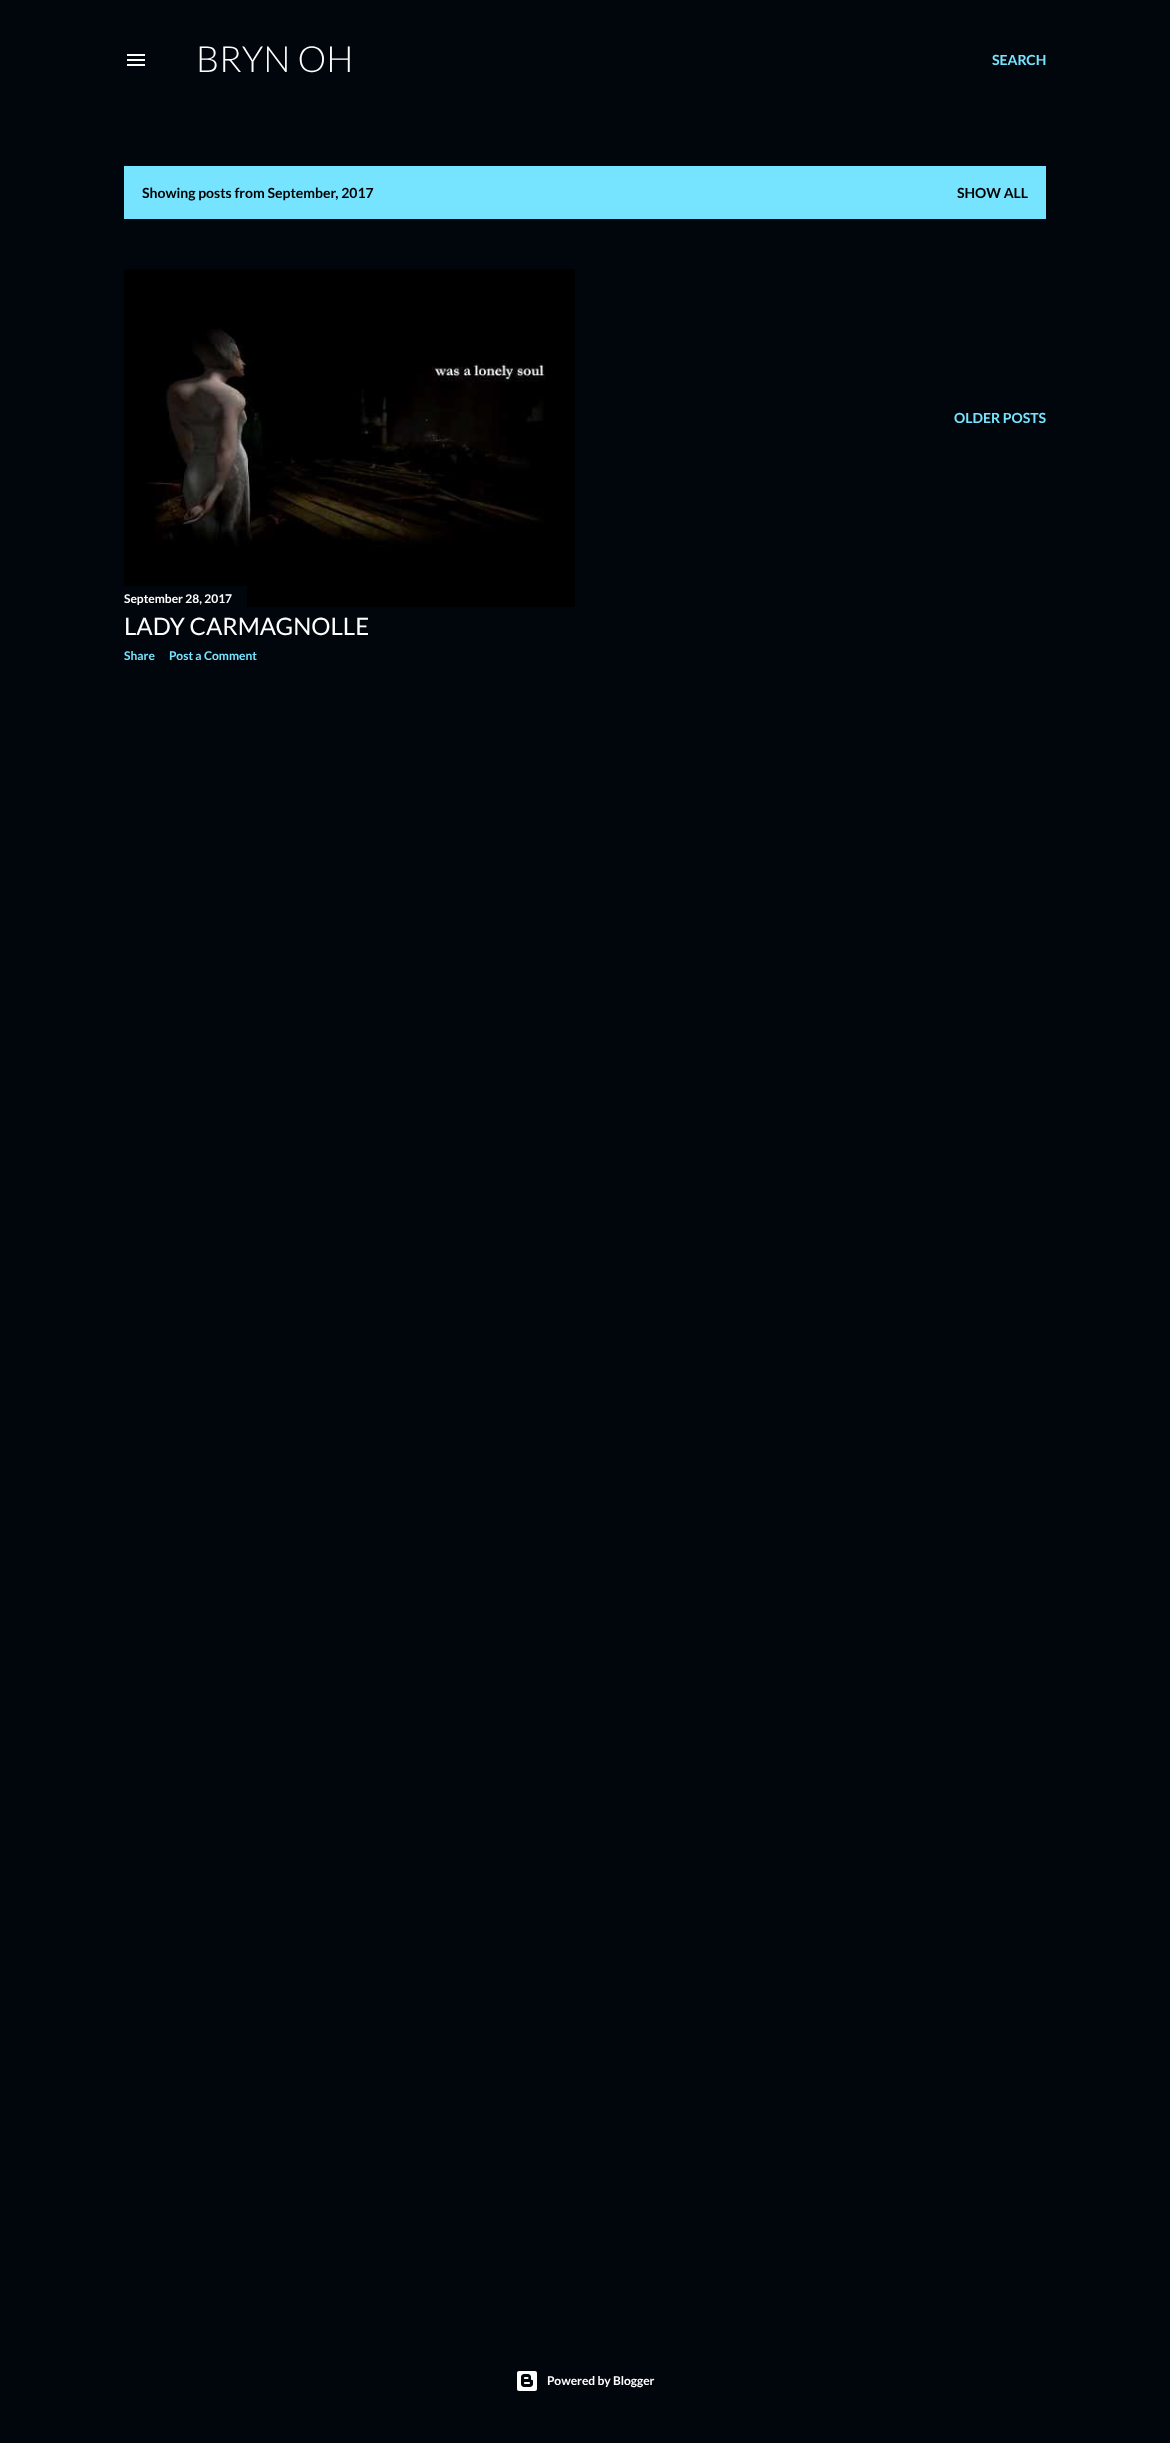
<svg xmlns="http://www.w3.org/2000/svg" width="1170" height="2443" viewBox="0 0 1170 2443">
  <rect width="100%" height="100%" fill="#01050c"/>
  <image x="127" y="54" width="18" height="12" href="img1.png"/>
  <text x="196" y="72" font-family="Lato" font-size="36" font-weight="300" fill="#ffffff">BRYN OH</text>
  <text x="992" y="65" font-family="Lato" font-size="14" font-weight="bold" fill="#77e4ff">SEARCH</text>
  <rect x="124" y="166" width="922" height="53" fill="#77e4ff"/>
  <text x="142" y="198" font-family="Lato" font-size="14" font-weight="bold" fill="#000000">Showing posts from September, 2017</text>
  <text x="957" y="198" font-family="Lato" font-size="14" font-weight="bold" fill="#000000">SHOW ALL</text>
  <text x="954" y="423" font-family="Lato" font-size="14" font-weight="bold" fill="#77e4ff">OLDER POSTS</text>
  <image x="124" y="269" width="451" height="338" href="img2.png"/>
  <rect x="124" y="586" width="123" height="21" fill="#01050c"/>
  <text x="124" y="603" font-family="Lato" font-size="12" font-weight="bold" fill="#ffffff">September 28, 2017</text>
  <text x="124" y="635" font-family="Lato" font-size="24" fill="#ffffff">LADY CARMAGNOLLE</text>
  <text x="124" y="660" font-family="Lato" font-size="12" font-weight="bold" fill="#77e4ff">Share</text>
  <text x="169" y="660" font-family="Lato" font-size="12" font-weight="bold" fill="#77e4ff">Post a Comment</text>
  <image x="517" y="2371" width="20" height="20" href="img3.png"/>
  <text x="547" y="2385" font-family="Lato" font-size="12" font-weight="bold" fill="#ffffff">Powered by Blogger</text>
</svg>
